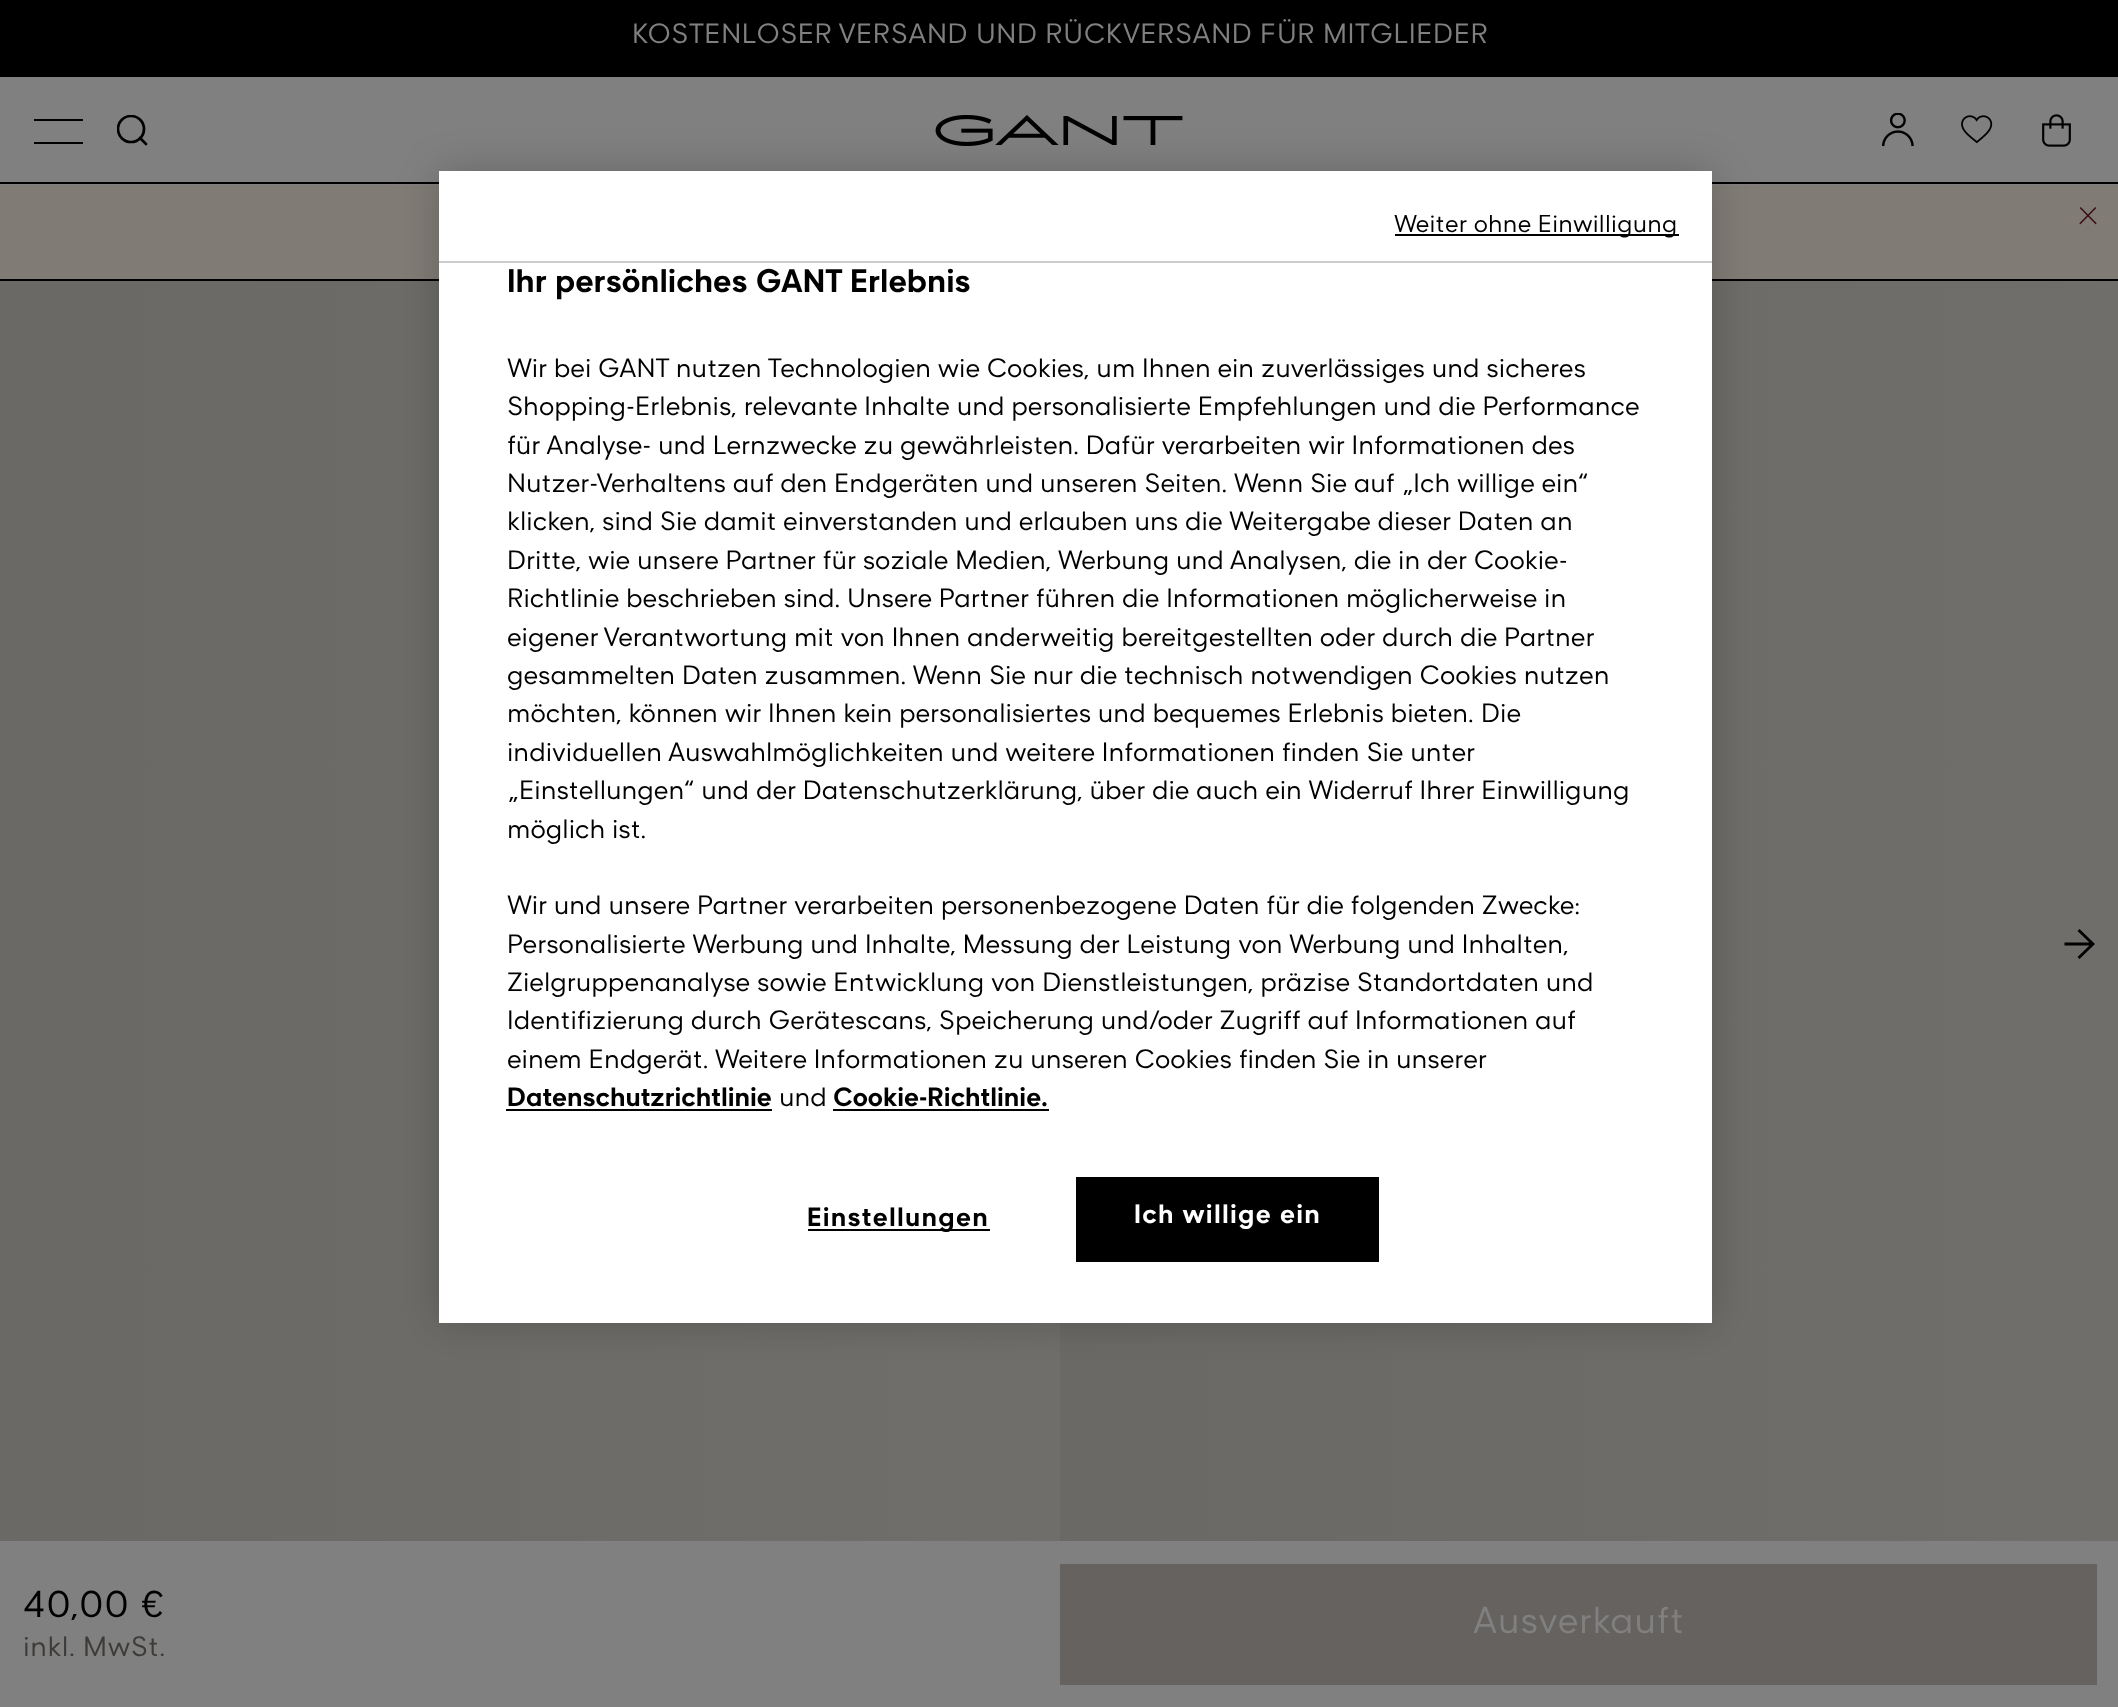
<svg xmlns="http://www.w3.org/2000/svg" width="2118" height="1707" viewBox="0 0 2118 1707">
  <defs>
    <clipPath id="clip1"><rect x="117" y="115" width="32" height="31"/></clipPath>
    <linearGradient id="g1" gradientUnits="userSpaceOnUse" x1="0" y1="944" x2="1060" y2="944"><stop offset="0" stop-color="#6b6966"/><stop offset="1" stop-color="#6f6e6b"/></linearGradient>
    <linearGradient id="g2" gradientUnits="userSpaceOnUse" x1="1060" y1="944" x2="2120" y2="944"><stop offset="0" stop-color="#6b6966"/><stop offset="1" stop-color="#6f6e6b"/></linearGradient>
    <filter id="blur1" x="-50%" y="-200%" width="200%" height="500%"><feGaussianBlur stdDeviation="20"/></filter>
  </defs>
  <rect width="100%" height="100%" fill="#808080"/>
  <rect x="0" y="0" width="2118" height="77" fill="#000000"/>
  <text x="632" y="43" font-family="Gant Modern" font-size="27" letter-spacing="0.55" fill="#808080">KOSTENLOSER VERSAND UND RÜCKVERSAND FÜR MITGLIEDER</text>
  <rect x="0" y="182" width="2118" height="2" fill="#000000"/>
  <rect x="34" y="119" width="49" height="2" fill="#000000"/>
  <rect x="34" y="142" width="49" height="2" fill="#000000"/>
  <path d="M140 138L146 144" fill="none" stroke="#000000" stroke-width="2.7" stroke-linecap="round" stroke-linejoin="round"/>
  <g clip-path="url(#clip1)">
    <circle cx="131" cy="129" r="13" fill="none" stroke="#000000" stroke-width="2.7"/>
  </g>
  <image x="935" y="115" width="248" height="31" href="img1.png"/>
  <image x="1882" y="113" width="32" height="33" href="img2.png"/>
  <image x="1961" y="115" width="32" height="29" href="img3.png"/>
  <image x="2042" y="114" width="29" height="33" href="img4.png"/>
  <rect x="0" y="185" width="2118" height="94" fill="#807b75"/>
  <rect x="0" y="279" width="2118" height="2" fill="#000000"/>
  <image x="2079" y="207" width="18" height="18" href="img5.png"/>
  <rect x="0" y="281" width="1060" height="1260" fill="url(#g1)"/>
  <rect x="1060" y="281" width="1058" height="1260" fill="url(#g2)"/>
  <rect x="439" y="171" width="1273" height="1152" fill="#000000" fill-opacity="0.2" filter="url(#blur1)"/>
  <rect x="439" y="171" width="1273" height="1152" fill="#ffffff"/>
  <rect x="1395" y="234" width="284" height="2" fill="#000000"/>
  <text x="1394" y="232" font-family="Gant Modern" font-size="23.6" letter-spacing="0.25" fill="#000000">Weiter ohne Einwilligung</text>
  <rect x="439" y="261" width="1273" height="2" fill="#cccccc"/>
  <text x="507" y="292" font-family="Gant Modern" font-size="31.5" font-weight="bold" fill="#000000">Ihr persönliches GANT Erlebnis</text>
  <text x="507" y="377" font-family="Gant Modern" font-size="25.6" fill="#000000">Wir bei GANT nutzen Technologien wie Cookies, um Ihnen ein zuverlässiges und sicheres</text>
  <text x="507" y="415" font-family="Gant Modern" font-size="25.6" fill="#000000">Shopping-Erlebnis, relevante Inhalte und personalisierte Empfehlungen und die Performance</text>
  <text x="507" y="454" font-family="Gant Modern" font-size="25.6" fill="#000000">für Analyse- und Lernzwecke zu gewährleisten. Dafür verarbeiten wir Informationen des</text>
  <text x="507" y="492" font-family="Gant Modern" font-size="25.6" fill="#000000">Nutzer-Verhaltens auf den Endgeräten und unseren Seiten. Wenn Sie auf „Ich willige ein“</text>
  <text x="507" y="530" font-family="Gant Modern" font-size="25.6" fill="#000000">klicken, sind Sie damit einverstanden und erlauben uns die Weitergabe dieser Daten an</text>
  <text x="507" y="569" font-family="Gant Modern" font-size="25.6" fill="#000000">Dritte, wie unsere Partner für soziale Medien, Werbung und Analysen, die in der Cookie-</text>
  <text x="507" y="607" font-family="Gant Modern" font-size="25.6" fill="#000000">Richtlinie beschrieben sind. Unsere Partner führen die Informationen möglicherweise in</text>
  <text x="507" y="646" font-family="Gant Modern" font-size="25.6" fill="#000000">eigener Verantwortung mit von Ihnen anderweitig bereitgestellten oder durch die Partner</text>
  <text x="507" y="684" font-family="Gant Modern" font-size="25.6" fill="#000000">gesammelten Daten zusammen. Wenn Sie nur die technisch notwendigen Cookies nutzen</text>
  <text x="507" y="722" font-family="Gant Modern" font-size="25.6" fill="#000000">möchten, können wir Ihnen kein personalisiertes und bequemes Erlebnis bieten.</text>
  <text x="1481" y="722" font-family="Gant Modern" font-size="25.6" fill="#000000">Die</text>
  <text x="507" y="761" font-family="Gant Modern" font-size="25.6" fill="#000000">individuellen Auswahlmöglichkeiten und weitere Informationen finden Sie unter</text>
  <text x="507" y="799" font-family="Gant Modern" font-size="25.6" fill="#000000">„Einstellungen“ und der Datenschutzerklärung, über die auch ein Widerruf Ihrer Einwilligung</text>
  <text x="507" y="838" font-family="Gant Modern" font-size="25.6" fill="#000000">möglich ist.</text>
  <text x="507" y="914" font-family="Gant Modern" font-size="25.6" fill="#000000">Wir und unsere Partner verarbeiten personenbezogene Daten für die folgenden Zwecke:</text>
  <text x="507" y="953" font-family="Gant Modern" font-size="25.6" fill="#000000">Personalisierte Werbung und Inhalte, Messung der Leistung von Werbung und Inhalten,</text>
  <text x="507" y="991" font-family="Gant Modern" font-size="25.6" fill="#000000">Zielgruppenanalyse sowie Entwicklung von Dienstleistungen, präzise Standortdaten und</text>
  <text x="507" y="1029" font-family="Gant Modern" font-size="25.6" fill="#000000">Identifizierung durch Gerätescans, Speicherung und/oder Zugriff auf Informationen auf</text>
  <text x="507" y="1068" font-family="Gant Modern" font-size="25.6" fill="#000000">einem Endgerät. Weitere Informationen zu unseren Cookies finden Sie in unserer</text>
  <text x="507" y="1106" font-family="Gant Modern" font-size="25.6" font-weight="bold" fill="#000000">Datenschutzrichtlinie</text>
  <rect x="506" y="1109" width="266" height="2" fill="#000000"/>
  <text x="779" y="1106" font-family="Gant Modern" font-size="25.6" fill="#000000">und</text>
  <text x="833" y="1106" font-family="Gant Modern" font-size="25.6" font-weight="bold" fill="#000000">Cookie-Richtlinie.</text>
  <rect x="833" y="1109" width="216" height="2" fill="#000000"/>
  <rect x="808" y="1229" width="182" height="2" fill="#000000"/>
  <text x="807" y="1226" font-family="Gant Modern" font-size="25.6" font-weight="bold" letter-spacing="1.25" fill="#000000">Einstellungen</text>
  <rect x="1076" y="1177" width="303" height="85" fill="#000000"/>
  <text x="1134" y="1223" font-family="Gant Modern" font-size="25.6" font-weight="bold" letter-spacing="1.25" fill="#ffffff">Ich willige ein</text>
  <path d="M2078.5 958L2093 944L2078.5 930M2093 944H2064.5" fill="none" stroke="#000000" stroke-width="2.8"/>
  <text x="23" y="1617" font-family="Gant Modern" font-size="36" letter-spacing="0.75" fill="#000000">40,00 €</text>
  <text x="23" y="1656" font-family="Gant Modern" font-size="27" letter-spacing="0.55" fill="#3d3a37">inkl. MwSt.</text>
  <rect x="1060" y="1564" width="1037" height="121" fill="#65625f"/>
  <text x="1473" y="1633" font-family="Gant Modern" font-size="36" letter-spacing="0.75" fill="#808080">Ausverkauft</text>
</svg>
